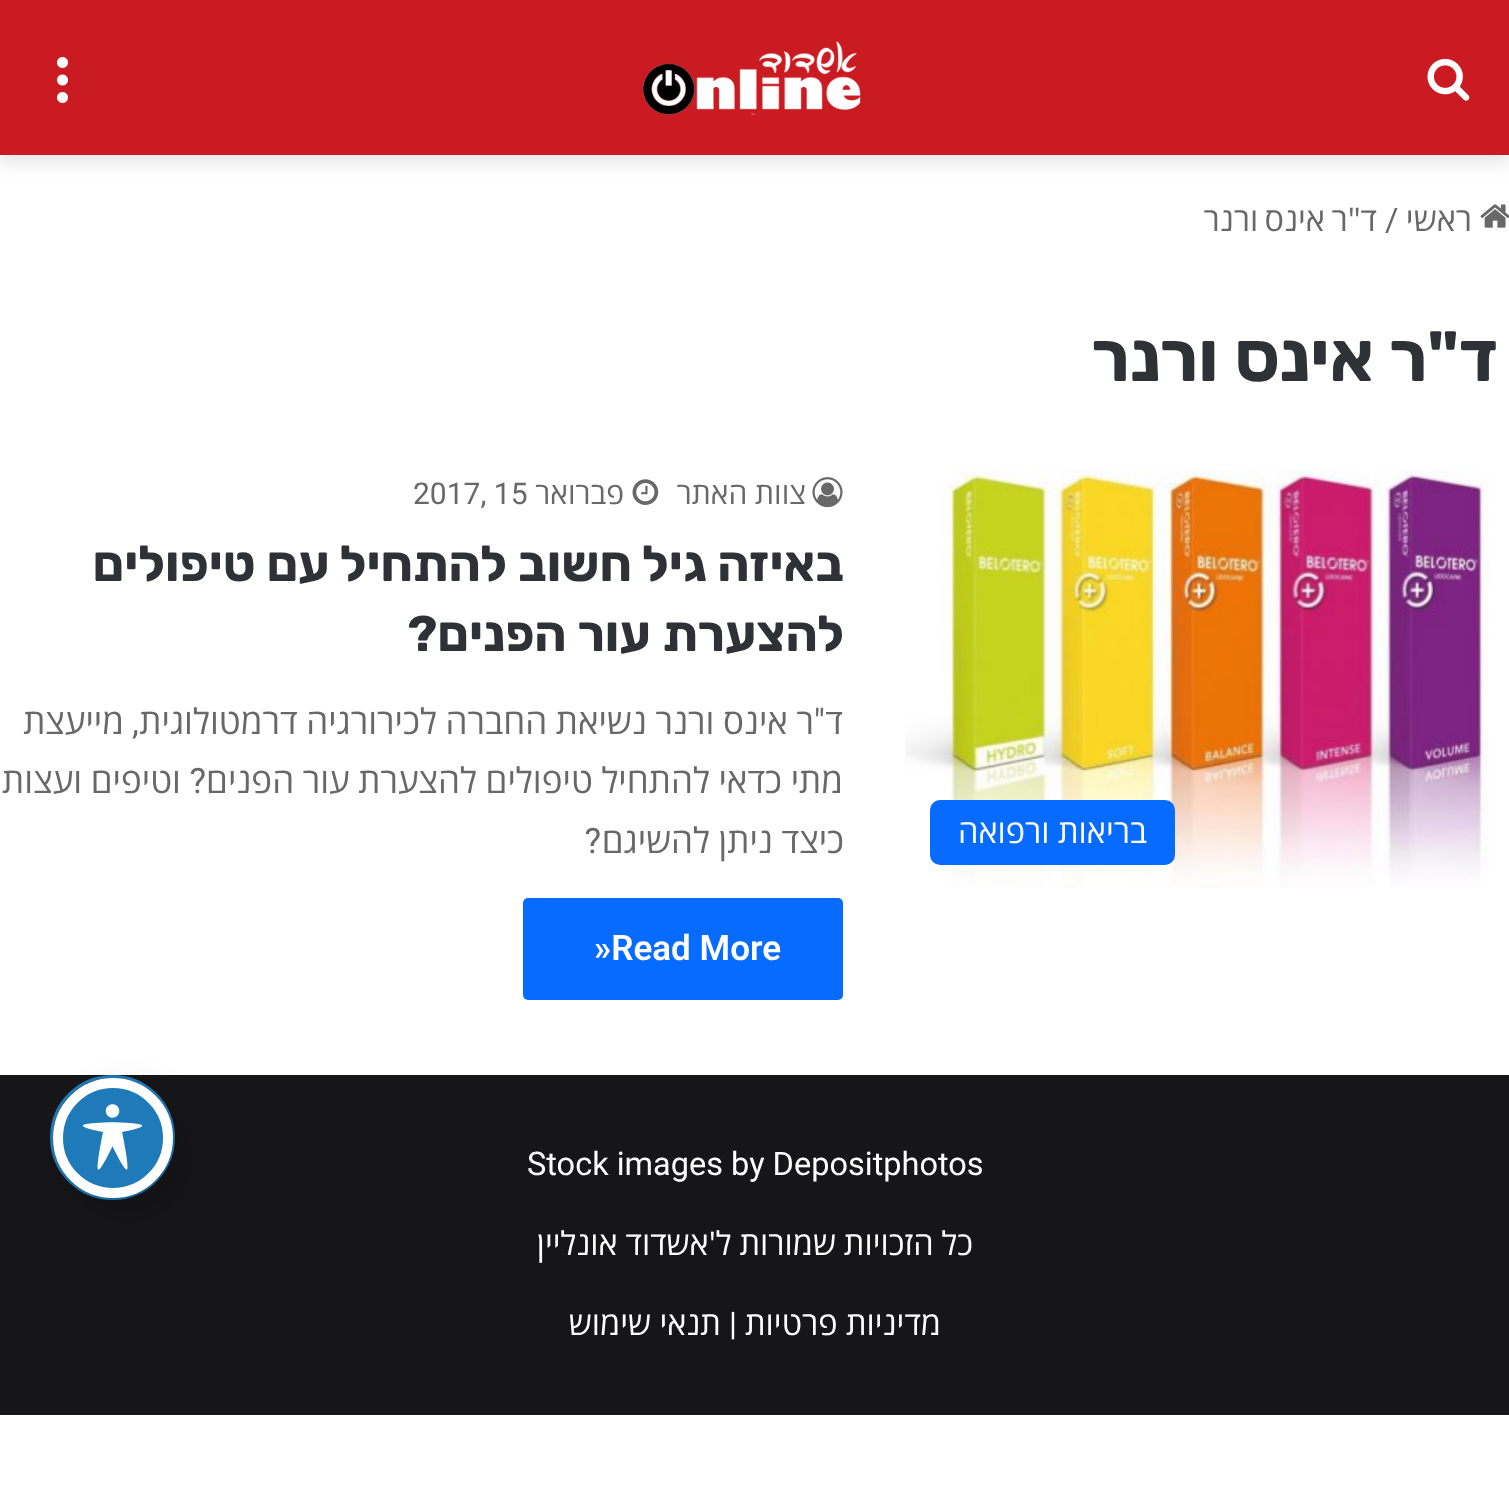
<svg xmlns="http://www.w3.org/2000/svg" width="1509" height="1499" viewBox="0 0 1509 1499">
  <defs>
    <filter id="blur1" x="-50%" y="-200%" width="200%" height="500%"><feGaussianBlur stdDeviation="9"/></filter>
    <filter id="blur2" x="-50%" y="-200%" width="200%" height="500%"><feGaussianBlur stdDeviation="20"/></filter>
  </defs>
  <rect width="100%" height="100%" fill="#ffffff"/>
  <rect x="0" y="8" width="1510" height="155" fill="#000000" fill-opacity="0.1" filter="url(#blur1)"/>
  <rect x="0" y="0" width="1509" height="155" fill="#c91b21"/>
  <image x="1427" y="58" width="43" height="43" href="img1.png"/>
  <image x="643" y="41" width="218" height="75" href="img2.png"/>
  <image x="57" y="57" width="11" height="46" href="img3.png"/>
  <image x="1480" y="204" width="29" height="24" href="img4.png"/>
  <text x="1472" y="231" font-family="Open Sans" font-size="32.5" direction="rtl" fill="#686868">ראשי</text>
  <text x="1385" y="231" font-family="Roboto" font-size="32.5" fill="#686868">/</text>
  <text x="1377" y="231" word-spacing="-2" font-family="Open Sans" font-size="32.5" direction="rtl" fill="#686868">ד"ר אינס ורנר</text>
  <text x="1498" y="381" word-spacing="1" font-family="Rubik" font-size="70" font-weight="bold" direction="rtl" fill="#2e3136">ד"ר אינס ורנר</text>
  <image x="905" y="470" width="585" height="418" href="img5.png"/>
  <rect x="930" y="800" width="245" height="65" rx="10" fill="#086bff"/>
  <text x="1147" y="843" font-family="Open Sans" font-size="32.5" direction="rtl" fill="#ffffff">בריאות ורפואה</text>
  <image x="812" y="477" width="31" height="31" href="img6.png"/>
  <text x="806" y="504" font-family="Open Sans" font-size="30" direction="rtl" fill="#686868">צוות האתר</text>
  <image x="632" y="479" width="27" height="26" href="img7.png"/>
  <text x="624" y="504" font-family="Open Sans" font-size="30" direction="rtl" fill="#686868">פברואר</text>
  <text x="413" y="504" font-family="Roboto" font-size="30" fill="#686868">2017, 15</text>
  <text x="844" y="581" word-spacing="0.5" font-family="Rubik" font-size="50" font-weight="bold" direction="rtl" fill="#2e3136">באיזה גיל חשוב להתחיל עם טיפולים</text>
  <text x="844" y="651" word-spacing="1" font-family="Rubik" font-size="50" font-weight="bold" direction="rtl" fill="#2e3136">להצערת עור הפנים?</text>
  <text x="843" y="734" font-family="Open Sans" font-size="35" direction="rtl" fill="#686868">ד</text>
  <text x="825" y="734" font-family="Roboto" font-size="35" direction="rtl" fill="#686868">"</text>
  <text x="814" y="734" word-spacing="-0.5" font-family="Open Sans" font-size="35" direction="rtl" fill="#686868">ר אינס ורנר נשיאת החברה לכירורגיה דרמטולוגית</text>
  <text x="139" y="734" font-family="Roboto" font-size="35" direction="rtl" fill="#686868">,</text>
  <text x="124" y="734" font-family="Open Sans" font-size="35" direction="rtl" fill="#686868">מייעצת</text>
  <text x="843" y="793" word-spacing="-0.5" font-family="Open Sans" font-size="35" direction="rtl" fill="#686868">מתי כדאי להתחיל טיפולים להצערת עור הפנים</text>
  <text x="206" y="793" font-family="Roboto" font-size="35" direction="rtl" fill="#686868">?</text>
  <text x="181" y="793" word-spacing="-0.5" font-family="Open Sans" font-size="35" direction="rtl" fill="#686868">וטיפים ועצות</text>
  <text x="844" y="853" word-spacing="-0.5" font-family="Open Sans" font-size="35" direction="rtl" fill="#686868">כיצד ניתן להשיגם</text>
  <text x="601" y="853" font-family="Roboto" font-size="35" direction="rtl" fill="#686868">?</text>
  <rect x="523" y="898" width="320" height="102" rx="5" fill="#086bff"/>
  <text x="594" y="960" font-family="Roboto" font-size="35" font-weight="600" fill="#ffffff">»Read More</text>
  <rect x="0" y="1075" width="1509" height="340" fill="#161619"/>
  <text x="527" y="1175" font-family="Roboto" font-size="32.5" fill="#ffffff">Stock images by Depositphotos</text>
  <text x="973" y="1255" word-spacing="-0.5" font-family="Open Sans" font-size="32.5" direction="rtl" fill="#ffffff">כל הזכויות שמורות ל'אשדוד אונליין</text>
  <text x="941" y="1335" font-family="Open Sans" font-size="32.5" direction="rtl" fill="#ffffff">מדיניות פרטיות</text>
  <text x="729" y="1335" font-family="Roboto" font-size="32.5" fill="#ffffff">|</text>
  <text x="721" y="1335" font-family="Open Sans" font-size="32.5" direction="rtl" fill="#ffffff">תנאי שימוש</text>
  <circle cx="112.5" cy="1137.5" r="61" fill="none" stroke="#1e7ab9" stroke-width="3"/>
  <rect x="68" y="1098" width="120" height="120" rx="60" fill="#000000" fill-opacity="0.2" filter="url(#blur2)"/>
  <circle cx="113" cy="1138" r="55" fill="#1e7ab9" stroke="#ffffff" stroke-width="10"/>
  <image x="82" y="1104" width="61" height="66" href="img8.png"/>
</svg>
